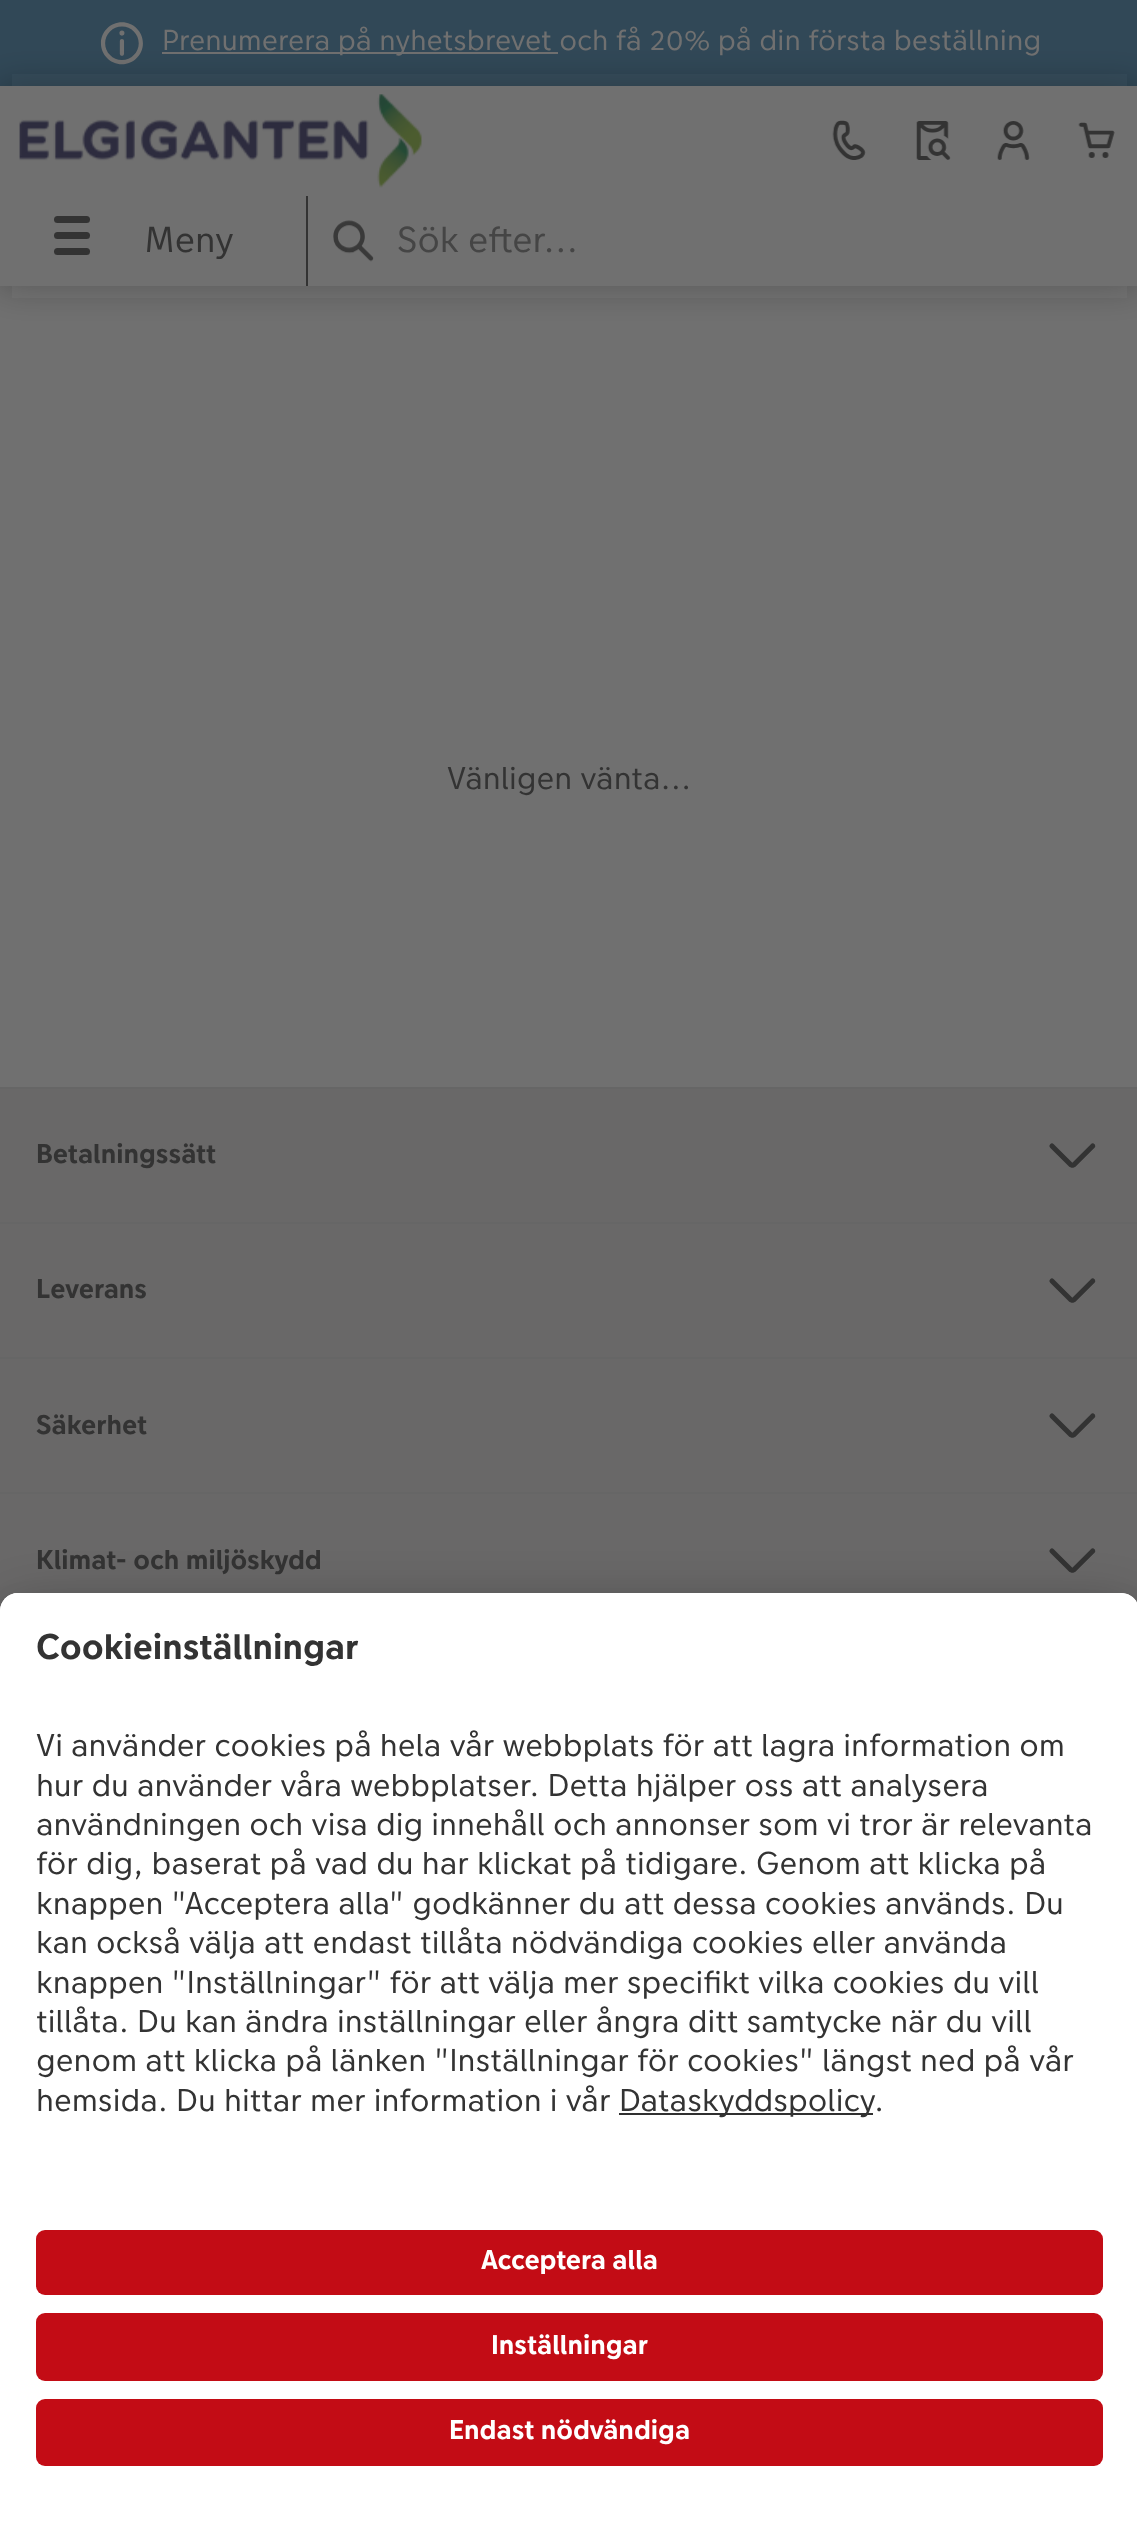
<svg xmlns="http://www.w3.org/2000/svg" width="1137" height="2528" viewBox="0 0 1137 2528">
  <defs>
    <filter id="blur1" x="-50%" y="-200%" width="200%" height="500%"><feGaussianBlur stdDeviation="18"/></filter>
    <filter id="blur2" x="-50%" y="-200%" width="200%" height="500%"><feGaussianBlur stdDeviation="31.5"/></filter>
    <filter id="blur3" x="-50%" y="-200%" width="200%" height="500%"><feGaussianBlur stdDeviation="29"/></filter>
  </defs>
  <rect width="100%" height="100%" fill="#707070"/>
  <rect x="0" y="0" width="1137" height="86" fill="#314857"/>
  <image x="100" y="22" width="43" height="43" href="img1.png"/>
  <rect x="162" y="52" width="396" height="2" fill="#707070"/>
  <text x="162" y="50" font-family="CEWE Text" font-size="28.8" fill="#707070">Prenumerera på nyhetsbrevet och få 20% på din första beställning</text>
  <rect x="0" y="86" width="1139" height="200" fill="#242424" fill-opacity="0.33" filter="url(#blur1)"/>
  <rect x="0" y="86" width="1137" height="200" fill="#707070"/>
  <image x="19" y="94" width="403" height="94" href="img2.png"/>
  <image x="832" y="120" width="34" height="40" href="img3.png"/>
  <image x="916" y="121" width="35" height="39" href="img4.png"/>
  <image x="997" y="121" width="33" height="39" href="img5.png"/>
  <image x="1078" y="122" width="37" height="36" href="img6.png"/>
  <rect x="306" y="196" width="2" height="90" fill="#333333"/>
  <rect x="54" y="216" width="36" height="7" rx="3.5" fill="#333333"/>
  <rect x="54" y="232" width="36" height="7" rx="3.5" fill="#333333"/>
  <rect x="54" y="248" width="36" height="7" rx="3.5" fill="#333333"/>
  <text x="144" y="252" font-family="CEWE Text" font-size="36" fill="#333333">Meny</text>
  <image x="333" y="220" width="41" height="42" href="img7.png"/>
  <text x="397" y="252" font-family="CEWE Text" font-size="36" fill="#454545">Sök efter...</text>
  <text x="447" y="789" font-family="CEWE Text" font-size="31.5" fill="#333333">Vänligen vänta...</text>
  <rect x="0" y="1089" width="1137" height="522" fill="#696868"/>
  <rect x="0" y="1087" width="1137" height="2" fill="#666666"/>
  <text x="36" y="1163" font-family="CEWE Text" font-size="27" font-weight="bold" fill="#333333">Betalningssätt</text>
  <image x="1049" y="1143" width="47" height="25" href="img8.png"/>
  <rect x="0" y="1222" width="1137" height="2" fill="#666666"/>
  <text x="36" y="1298" font-family="CEWE Text" font-size="27" font-weight="bold" fill="#333333">Leverans</text>
  <image x="1049" y="1278" width="47" height="25" href="img8.png"/>
  <rect x="0" y="1357" width="1137" height="2" fill="#666666"/>
  <text x="36" y="1434" font-family="CEWE Text" font-size="27" font-weight="bold" fill="#333333">Säkerhet</text>
  <image x="1049" y="1413" width="47" height="25" href="img8.png"/>
  <rect x="0" y="1492" width="1137" height="2" fill="#666666"/>
  <text x="36" y="1569" font-family="CEWE Text" font-size="27" font-weight="bold" fill="#333333">Klimat- och miljöskydd</text>
  <image x="1049" y="1548" width="47" height="25" href="img8.png"/>
  <rect x="0" y="1638" width="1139" height="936" rx="18" fill="#000000" fill-opacity="0.3" filter="url(#blur2)"/>
  <rect x="0" y="1604" width="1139" height="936" rx="18" fill="#000000" fill-opacity="0.22" filter="url(#blur3)"/>
  <path d="M18 1593H1121C1131 1593 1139 1601 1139 1611V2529H0V1611C0 1601 8 1593 18 1593Z" fill="#ffffff"/>
  <path d="M18 1593H1121C1131 1593 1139 1601 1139 1611V2203H0V1611C0 1601 8 1593 18 1593Z" fill="#ffffff"/>
  <text x="36" y="1659" font-family="CEWE Text" font-size="35.5" font-weight="bold" fill="#333333">Cookieinställningar</text>
  <text x="36" y="1756" font-family="CEWE Text" font-size="31.5" fill="#333333">Vi använder cookies på hela vår webbplats för att lagra information om</text>
  <text x="36" y="1796" font-family="CEWE Text" font-size="31.5" fill="#333333">hur du använder våra webbplatser. Detta hjälper oss att analysera</text>
  <text x="36" y="1835" font-family="CEWE Text" font-size="31.5" fill="#333333">användningen och visa dig innehåll och annonser som vi tror är relevanta</text>
  <text x="36" y="1874" font-family="CEWE Text" font-size="31.5" fill="#333333">för dig, baserat på vad du har klickat på tidigare. Genom att klicka på</text>
  <text x="36" y="1914" font-family="CEWE Text" font-size="31.5" fill="#333333">knappen "Acceptera alla" godkänner du att dessa cookies används. Du</text>
  <text x="36" y="1953" font-family="CEWE Text" font-size="31.5" fill="#333333">kan också välja att endast tillåta nödvändiga cookies eller använda</text>
  <text x="36" y="1993" font-family="CEWE Text" font-size="31.5" fill="#333333">knappen "Inställningar" för att välja mer specifikt vilka cookies du vill</text>
  <text x="36" y="2032" font-family="CEWE Text" font-size="31.5" fill="#333333">tillåta. Du kan ändra inställningar eller ångra ditt samtycke när du vill</text>
  <text x="36" y="2071" font-family="CEWE Text" font-size="31.5" fill="#333333">genom att klicka på länken "Inställningar för cookies" längst ned på vår</text>
  <text x="36" y="2111" font-family="CEWE Text" font-size="31.5" fill="#333333">hemsida. Du hittar mer information i vår</text>
  <rect x="619" y="2113" width="254" height="2" fill="#303030"/>
  <text x="619" y="2111" font-family="CEWE Text" font-size="31.5" fill="#333333">Dataskyddspolicy</text>
  <text x="874" y="2111" font-family="CEWE Text" font-size="31.5" fill="#333333">.</text>
  <rect x="36" y="2230" width="1067" height="65" rx="9" fill="#c30c15"/>
  <text x="481" y="2269" font-family="CEWE Text" font-size="27" font-weight="bold" fill="#ffffff">Acceptera alla</text>
  <rect x="36" y="2313" width="1067" height="68" rx="9" fill="#c30c15"/>
  <text x="491" y="2354" font-family="CEWE Text" font-size="27" font-weight="bold" fill="#ffffff">Inställningar</text>
  <rect x="36" y="2399" width="1067" height="67" rx="9" fill="#c30c15"/>
  <text x="449" y="2439" font-family="CEWE Text" font-size="27" font-weight="bold" fill="#ffffff">Endast nödvändiga</text>
</svg>
